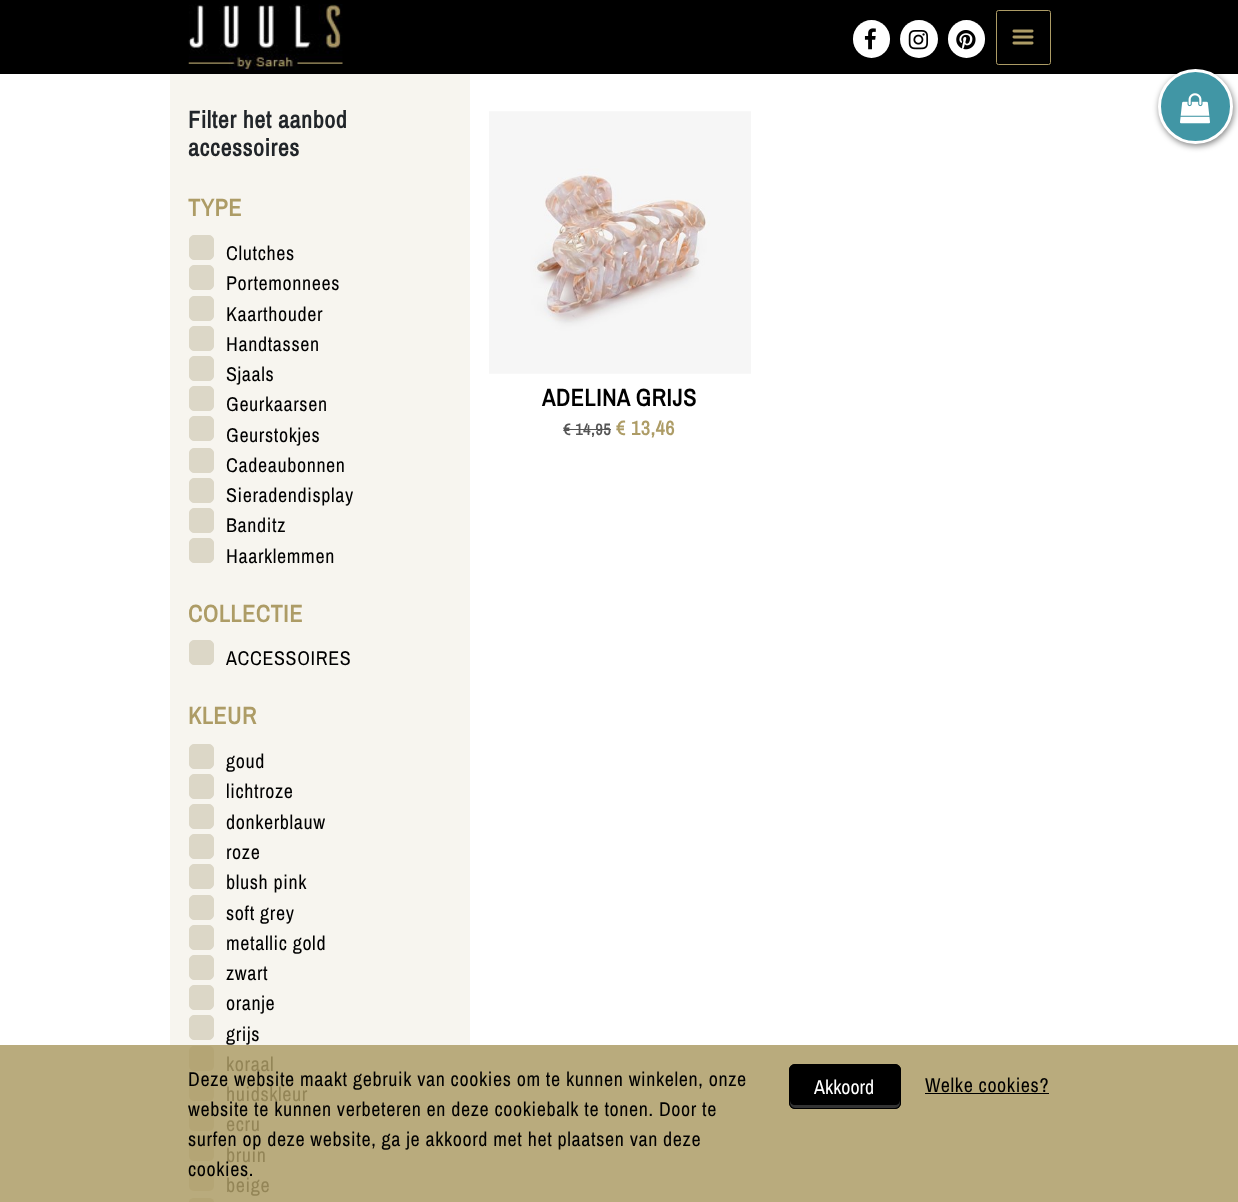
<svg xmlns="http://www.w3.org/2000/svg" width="1238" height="1202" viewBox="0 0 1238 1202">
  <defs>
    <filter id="blur1" x="-50%" y="-200%" width="200%" height="500%"><feGaussianBlur stdDeviation="3"/></filter>
  </defs>
  <rect width="100%" height="100%" fill="#ffffff"/>
  <rect x="0" y="1045" width="1238" height="157" fill="#b9ab7d"/>
  <rect x="0" y="0" width="1238" height="74" fill="#000000"/>
  <image x="188" y="4" width="155" height="66" href="img1.png"/>
  <rect x="853" y="20" width="37" height="38" rx="18.5" fill="#ffffff"/>
  <image x="864" y="28" width="12" height="22" href="img2.png"/>
  <circle cx="919" cy="39" r="19" fill="#ffffff"/>
  <image x="908" y="30" width="21" height="20" href="img3.png"/>
  <rect x="948" y="20" width="37" height="38" rx="18.5" fill="#ffffff"/>
  <image x="956" y="30" width="20" height="20" href="img4.png"/>
  <rect x="996.5" y="10.5" width="54" height="54" rx="2" fill="none" stroke="#ad9c66"/>
  <image x="1012" y="29" width="22" height="16" href="img5.png"/>
  <rect x="170" y="74" width="300" height="971" fill="#f7f5ef"/>
  <text x="188" y="128" font-family="Archivo Narrow" font-size="24" font-weight="bold" letter-spacing="0.62" fill="#212529">Filter het aanbod</text>
  <text x="188" y="156" font-family="Archivo Narrow" font-size="24" font-weight="bold" letter-spacing="0.62" fill="#212529">accessoires</text>
  <text x="188" y="216" font-family="Archivo Narrow" font-size="24" font-weight="bold" letter-spacing="0.62" fill="#ad9c66">TYPE</text>
  <rect x="189.5" y="235.5" width="24" height="24" rx="4.5" fill="#dcd7c7" stroke="#dcd7c7"/>
  <text x="226" y="260" font-family="Archivo Narrow" font-size="20" letter-spacing="0.62" fill="#000000">Clutches</text>
  <rect x="189.5" y="265.5" width="24" height="24" rx="4.5" fill="#dcd7c7" stroke="#dcd7c7"/>
  <text x="226" y="290" font-family="Archivo Narrow" font-size="20" letter-spacing="0.62" fill="#000000">Portemonnees</text>
  <rect x="189.5" y="296.5" width="24" height="24" rx="4.5" fill="#dcd7c7" stroke="#dcd7c7"/>
  <text x="226" y="321" font-family="Archivo Narrow" font-size="20" letter-spacing="0.62" fill="#000000">Kaarthouder</text>
  <rect x="189.5" y="326.5" width="24" height="24" rx="4.5" fill="#dcd7c7" stroke="#dcd7c7"/>
  <text x="226" y="351" font-family="Archivo Narrow" font-size="20" letter-spacing="0.62" fill="#000000">Handtassen</text>
  <rect x="189.5" y="356.5" width="24" height="24" rx="4.5" fill="#dcd7c7" stroke="#dcd7c7"/>
  <text x="226" y="381" font-family="Archivo Narrow" font-size="20" letter-spacing="0.62" fill="#000000">Sjaals</text>
  <rect x="189.5" y="386.5" width="24" height="24" rx="4.5" fill="#dcd7c7" stroke="#dcd7c7"/>
  <text x="226" y="411" font-family="Archivo Narrow" font-size="20" letter-spacing="0.62" fill="#000000">Geurkaarsen</text>
  <rect x="189.5" y="416.5" width="24" height="24" rx="4.5" fill="#dcd7c7" stroke="#dcd7c7"/>
  <text x="226" y="442" font-family="Archivo Narrow" font-size="20" letter-spacing="0.62" fill="#000000">Geurstokjes</text>
  <rect x="189.5" y="448.5" width="24" height="24" rx="4.5" fill="#dcd7c7" stroke="#dcd7c7"/>
  <text x="226" y="472" font-family="Archivo Narrow" font-size="20" letter-spacing="0.62" fill="#000000">Cadeaubonnen</text>
  <rect x="189.5" y="478.5" width="24" height="24" rx="4.5" fill="#dcd7c7" stroke="#dcd7c7"/>
  <text x="226" y="502" font-family="Archivo Narrow" font-size="20" letter-spacing="0.62" fill="#000000">Sieradendisplay</text>
  <rect x="189.5" y="508.5" width="24" height="24" rx="4.5" fill="#dcd7c7" stroke="#dcd7c7"/>
  <text x="226" y="532" font-family="Archivo Narrow" font-size="20" letter-spacing="0.62" fill="#000000">Banditz</text>
  <rect x="189.5" y="538.5" width="24" height="24" rx="4.5" fill="#dcd7c7" stroke="#dcd7c7"/>
  <text x="226" y="563" font-family="Archivo Narrow" font-size="20" letter-spacing="0.62" fill="#000000">Haarklemmen</text>
  <text x="188" y="622" font-family="Archivo Narrow" font-size="24" font-weight="bold" letter-spacing="0.62" fill="#ad9c66">COLLECTIE</text>
  <rect x="189.5" y="640.5" width="24" height="24" rx="4.5" fill="#dcd7c7" stroke="#dcd7c7"/>
  <text x="226" y="665" font-family="Archivo Narrow" font-size="20" letter-spacing="0.62" fill="#000000">ACCESSOIRES</text>
  <text x="188" y="724" font-family="Archivo Narrow" font-size="24" font-weight="bold" letter-spacing="0.62" fill="#ad9c66">KLEUR</text>
  <rect x="189.5" y="744.5" width="24" height="24" rx="4.5" fill="#dcd7c7" stroke="#dcd7c7"/>
  <text x="226" y="768" font-family="Archivo Narrow" font-size="20" letter-spacing="0.62" fill="#000000">goud</text>
  <rect x="189.5" y="774.5" width="24" height="24" rx="4.5" fill="#dcd7c7" stroke="#dcd7c7"/>
  <text x="226" y="798" font-family="Archivo Narrow" font-size="20" letter-spacing="0.62" fill="#000000">lichtroze</text>
  <rect x="189.5" y="804.5" width="24" height="24" rx="4.5" fill="#dcd7c7" stroke="#dcd7c7"/>
  <text x="226" y="829" font-family="Archivo Narrow" font-size="20" letter-spacing="0.62" fill="#000000">donkerblauw</text>
  <rect x="189.5" y="834.5" width="24" height="24" rx="4.5" fill="#dcd7c7" stroke="#dcd7c7"/>
  <text x="226" y="859" font-family="Archivo Narrow" font-size="20" letter-spacing="0.62" fill="#000000">roze</text>
  <rect x="189.5" y="864.5" width="24" height="24" rx="4.5" fill="#dcd7c7" stroke="#dcd7c7"/>
  <text x="226" y="889" font-family="Archivo Narrow" font-size="20" letter-spacing="0.62" fill="#000000">blush pink</text>
  <rect x="189.5" y="895.5" width="24" height="24" rx="4.5" fill="#dcd7c7" stroke="#dcd7c7"/>
  <text x="226" y="920" font-family="Archivo Narrow" font-size="20" letter-spacing="0.62" fill="#000000">soft grey</text>
  <rect x="189.5" y="925.5" width="24" height="24" rx="4.5" fill="#dcd7c7" stroke="#dcd7c7"/>
  <text x="226" y="950" font-family="Archivo Narrow" font-size="20" letter-spacing="0.62" fill="#000000">metallic gold</text>
  <rect x="189.5" y="955.5" width="24" height="24" rx="4.5" fill="#dcd7c7" stroke="#dcd7c7"/>
  <text x="226" y="980" font-family="Archivo Narrow" font-size="20" letter-spacing="0.62" fill="#000000">zwart</text>
  <rect x="189.5" y="985.5" width="24" height="24" rx="4.5" fill="#dcd7c7" stroke="#dcd7c7"/>
  <text x="226" y="1010" font-family="Archivo Narrow" font-size="20" letter-spacing="0.62" fill="#000000">oranje</text>
  <rect x="189.5" y="1015.5" width="24" height="24" rx="4.5" fill="#dcd7c7" stroke="#dcd7c7"/>
  <text x="226" y="1041" font-family="Archivo Narrow" font-size="20" letter-spacing="0.62" fill="#000000">grijs</text>
  <rect x="189" y="1046" width="25" height="25" rx="5" fill="#b4a575"/>
  <text x="226" y="1071" font-family="Archivo Narrow" font-size="20" letter-spacing="0.62" fill="#938557">koraal</text>
  <rect x="189" y="1076" width="25" height="25" rx="5" fill="#b4a575"/>
  <text x="226" y="1101" font-family="Archivo Narrow" font-size="20" letter-spacing="0.62" fill="#938557">huidskleur</text>
  <rect x="189" y="1106" width="25" height="25" rx="5" fill="#b4a575"/>
  <text x="226" y="1131" font-family="Archivo Narrow" font-size="20" letter-spacing="0.62" fill="#938557">ecru</text>
  <rect x="189" y="1136" width="25" height="25" rx="5" fill="#b4a575"/>
  <text x="226" y="1162" font-family="Archivo Narrow" font-size="20" letter-spacing="0.62" fill="#938557">bruin</text>
  <rect x="189" y="1166" width="25" height="25" rx="5" fill="#b4a575"/>
  <text x="226" y="1192" font-family="Archivo Narrow" font-size="20" letter-spacing="0.62" fill="#938557">beige</text>
  <rect x="189" y="1198" width="25" height="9" rx="5" fill="#b4a575"/>
  <image x="489" y="111" width="262" height="263" href="img6.png"/>
  <text x="542" y="406" font-family="Archivo Narrow" font-size="24" font-weight="bold" letter-spacing="0.62" fill="#000000">ADELINA GRIJS</text>
  <text x="563" y="435" font-family="Archivo Narrow" font-size="16" font-weight="bold" letter-spacing="0.62" fill="#555555">€ 14,95</text>
  <rect x="564" y="429" width="47" height="1" fill="#555555"/>
  <text x="616" y="435" font-family="Archivo Narrow" font-size="20" font-weight="bold" letter-spacing="0.62" fill="#ad9c66">€ 13,46</text>
  <rect x="1159" y="71" width="75" height="75" rx="37.5" fill="#000000" fill-opacity="0.5" filter="url(#blur1)"/>
  <circle cx="1195.5" cy="106.5" r="36" fill="#4196a5" stroke="#ffffff" stroke-width="3"/>
  <image x="1180" y="93" width="30" height="31" href="img7.png"/>
  <text x="188" y="1086" font-family="Archivo Narrow" font-size="20" letter-spacing="0.62" fill="#000000">Deze website maakt gebruik van cookies om te kunnen winkelen, onze</text>
  <text x="188" y="1116" font-family="Archivo Narrow" font-size="20" letter-spacing="0.62" fill="#000000">website te kunnen verbeteren en deze cookiebalk te tonen. Door te</text>
  <text x="188" y="1146" font-family="Archivo Narrow" font-size="20" letter-spacing="0.62" fill="#000000">surfen op deze website, ga je akkoord met het plaatsen van deze</text>
  <text x="188" y="1176" font-family="Archivo Narrow" font-size="20" letter-spacing="0.62" fill="#000000">cookies.</text>
  <rect x="789" y="1064" width="112" height="45" rx="6" fill="#000000"/>
  <path d="M790 1100V1103C790 1106 792 1108 795 1108H895C898 1108 900 1106 900 1103V1100C900 1103 898 1105 895 1105H795C792 1105 790 1103 790 1100Z" fill="#333333"/>
  <rect x="789.5" y="1064.5" width="111" height="44" rx="5.5" fill="none" stroke="#000000"/>
  <text x="814" y="1094" font-family="Archivo Narrow" font-size="20" fill="#ffffff">Akkoord</text>
  <text x="925" y="1092" font-family="Archivo Narrow" font-size="20" letter-spacing="0.62" fill="#000000">Welke cookies?</text>
  <rect x="925" y="1093" width="124" height="1" fill="#000000"/>
</svg>
